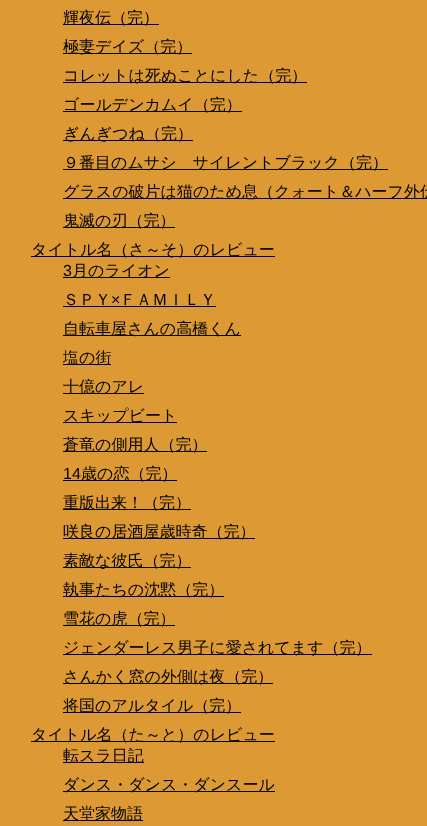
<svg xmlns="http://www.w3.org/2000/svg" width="427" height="826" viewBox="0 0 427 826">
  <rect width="100%" height="100%" fill="#dd9933"/>
  <rect x="63" y="24" width="96" height="1" fill="#000000"/>
  <text x="63" y="23" font-family="WenQuanYi Zen Hei" font-size="16" font-weight="500" fill="#000000">輝夜伝（完）</text>
  <rect x="63" y="53" width="129" height="1" fill="#000000"/>
  <text x="63" y="52" font-family="WenQuanYi Zen Hei" font-size="16" font-weight="500" fill="#000000">極妻デイズ（完）</text>
  <rect x="63" y="82" width="244" height="1" fill="#000000"/>
  <text x="63" y="81" font-family="WenQuanYi Zen Hei" font-size="16" font-weight="500" fill="#000000">コレットは死ぬことにした（完）</text>
  <rect x="63" y="111" width="179" height="1" fill="#000000"/>
  <text x="63" y="110" font-family="WenQuanYi Zen Hei" font-size="16" font-weight="500" fill="#000000">ゴールデンカムイ（完）</text>
  <rect x="63" y="140" width="130" height="1" fill="#000000"/>
  <text x="63" y="139" font-family="WenQuanYi Zen Hei" font-size="16" font-weight="500" fill="#000000">ぎんぎつね（完）</text>
  <rect x="63" y="169" width="325" height="1" fill="#000000"/>
  <text x="63" y="168" font-family="WenQuanYi Zen Hei" font-size="16" font-weight="500" fill="#000000">９番目のムサシ　サイレントブラック（完）</text>
  <rect x="63" y="198" width="364" height="1" fill="#000000"/>
  <text x="63" y="197" font-family="WenQuanYi Zen Hei" font-size="16" font-weight="500" fill="#000000">グラスの破片は猫のため息（クォート＆ハーフ外伝</text>
  <rect x="63" y="227" width="112" height="1" fill="#000000"/>
  <text x="63" y="226" font-family="WenQuanYi Zen Hei" font-size="16" font-weight="500" fill="#000000">鬼滅の刃（完）</text>
  <rect x="31" y="256" width="244" height="1" fill="#000000"/>
  <text x="31" y="255" font-family="WenQuanYi Zen Hei" font-size="16" font-weight="500" fill="#000000">タイトル名（さ～そ）のレビュー</text>
  <text x="63" y="276" font-family="Liberation Sans" font-size="16" fill="#000000">3</text>
  <rect x="63" y="277" width="107" height="1" fill="#000000"/>
  <text x="72" y="276" font-family="WenQuanYi Zen Hei" font-size="16" font-weight="500" fill="#000000">月のライオン</text>
  <text x="63" y="305" font-family="WenQuanYi Zen Hei" font-size="16" font-weight="500" fill="#000000">ＳＰＹ</text>
  <text x="111" y="305" font-family="Liberation Sans" font-size="16" fill="#000000">×</text>
  <rect x="63" y="306" width="153" height="1" fill="#000000"/>
  <text x="120" y="305" font-family="WenQuanYi Zen Hei" font-size="16" font-weight="500" fill="#000000">ＦＡＭＩＬＹ</text>
  <rect x="63" y="335" width="178" height="1" fill="#000000"/>
  <text x="63" y="334" font-family="WenQuanYi Zen Hei" font-size="16" font-weight="500" fill="#000000">自転車屋さんの高橋くん</text>
  <rect x="63" y="364" width="48" height="1" fill="#000000"/>
  <text x="63" y="363" font-family="WenQuanYi Zen Hei" font-size="16" font-weight="500" fill="#000000">塩の街</text>
  <rect x="63" y="393" width="81" height="1" fill="#000000"/>
  <text x="63" y="392" font-family="WenQuanYi Zen Hei" font-size="16" font-weight="500" fill="#000000">十億のアレ</text>
  <rect x="63" y="422" width="114" height="1" fill="#000000"/>
  <text x="63" y="421" font-family="WenQuanYi Zen Hei" font-size="16" font-weight="500" fill="#000000">スキップビート</text>
  <rect x="63" y="451" width="144" height="1" fill="#000000"/>
  <text x="63" y="450" font-family="WenQuanYi Zen Hei" font-size="16" font-weight="500" fill="#000000">蒼竜の側用人（完）</text>
  <text x="63" y="479" font-family="Liberation Sans" font-size="16" fill="#000000">14</text>
  <rect x="63" y="480" width="114" height="1" fill="#000000"/>
  <text x="81" y="479" font-family="WenQuanYi Zen Hei" font-size="16" font-weight="500" fill="#000000">歳の恋（完）</text>
  <rect x="63" y="509" width="128" height="1" fill="#000000"/>
  <text x="63" y="508" font-family="WenQuanYi Zen Hei" font-size="16" font-weight="500" fill="#000000">重版出来！（完）</text>
  <rect x="63" y="538" width="192" height="1" fill="#000000"/>
  <text x="63" y="537" font-family="WenQuanYi Zen Hei" font-size="16" font-weight="500" fill="#000000">咲良の居酒屋歳時奇（完）</text>
  <rect x="63" y="567" width="128" height="1" fill="#000000"/>
  <text x="63" y="566" font-family="WenQuanYi Zen Hei" font-size="16" font-weight="500" fill="#000000">素敵な彼氏（完）</text>
  <rect x="63" y="596" width="161" height="1" fill="#000000"/>
  <text x="63" y="595" font-family="WenQuanYi Zen Hei" font-size="16" font-weight="500" fill="#000000">執事たちの沈黙（完）</text>
  <rect x="63" y="625" width="112" height="1" fill="#000000"/>
  <text x="63" y="624" font-family="WenQuanYi Zen Hei" font-size="16" font-weight="500" fill="#000000">雪花の虎（完）</text>
  <rect x="63" y="654" width="309" height="1" fill="#000000"/>
  <text x="63" y="653" font-family="WenQuanYi Zen Hei" font-size="16" font-weight="500" fill="#000000">ジェンダーレス男子に愛されてます（完）</text>
  <rect x="63" y="683" width="210" height="1" fill="#000000"/>
  <text x="63" y="682" font-family="WenQuanYi Zen Hei" font-size="16" font-weight="500" fill="#000000">さんかく窓の外側は夜（完）</text>
  <rect x="63" y="712" width="178" height="1" fill="#000000"/>
  <text x="63" y="711" font-family="WenQuanYi Zen Hei" font-size="16" font-weight="500" fill="#000000">将国のアルタイル（完）</text>
  <rect x="31" y="741" width="244" height="1" fill="#000000"/>
  <text x="31" y="740" font-family="WenQuanYi Zen Hei" font-size="16" font-weight="500" fill="#000000">タイトル名（た～と）のレビュー</text>
  <rect x="63" y="762" width="81" height="1" fill="#000000"/>
  <text x="63" y="761" font-family="WenQuanYi Zen Hei" font-size="16" font-weight="500" fill="#000000">転スラ日記</text>
  <rect x="63" y="791" width="212" height="1" fill="#000000"/>
  <text x="63" y="790" font-family="WenQuanYi Zen Hei" font-size="16" font-weight="500" fill="#000000">ダンス・ダンス・ダンスール</text>
  <rect x="63" y="820" width="80" height="1" fill="#000000"/>
  <text x="63" y="819" font-family="WenQuanYi Zen Hei" font-size="16" font-weight="500" fill="#000000">天堂家物語</text>
</svg>
